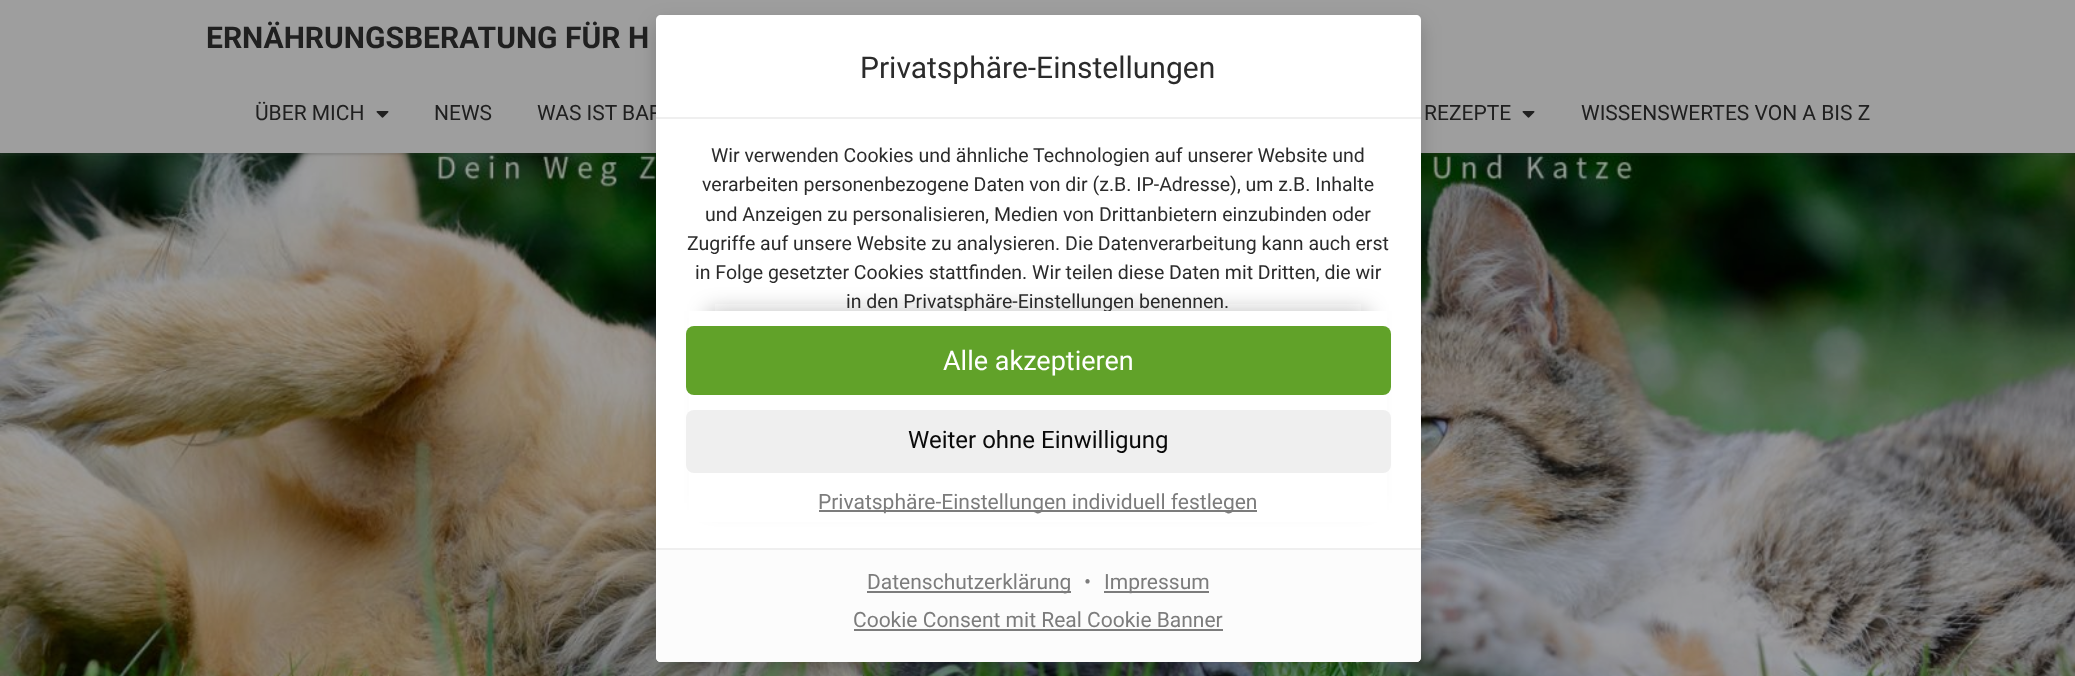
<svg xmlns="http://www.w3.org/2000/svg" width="2075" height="676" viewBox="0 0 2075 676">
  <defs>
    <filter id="blur1" x="-50%" y="-200%" width="200%" height="500%"><feGaussianBlur stdDeviation="1"/></filter>
    <filter id="blur2" x="-50%" y="-200%" width="200%" height="500%"><feGaussianBlur stdDeviation="10"/></filter>
    <filter id="blur3" x="-50%" y="-200%" width="200%" height="500%"><feGaussianBlur stdDeviation="11"/></filter>
  </defs>
  <rect width="100%" height="100%" fill="#ffffff"/>
  <image x="0" y="153" width="2075" height="523" href="img2.png"/>
  <rect x="0" y="2" width="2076" height="153" fill="#3e3e3e" fill-opacity="0.2" filter="url(#blur1)"/>
  <rect x="0" y="0" width="2075" height="153" fill="#9e9e9e"/>
  <text x="206" y="48" font-family="Roboto" font-size="30" font-weight="bold" fill="#202020">ERNÄHRUNGSBERATUNG FÜR H</text>
  <text x="255" y="120" font-family="Roboto" font-size="21" fill="#202020">ÜBER MICH</text>
  <image x="376" y="111" width="13" height="7" href="img1.png"/>
  <text x="434" y="120" font-family="Roboto" font-size="21" fill="#202020">NEWS</text>
  <text x="537" y="120" font-family="Roboto" font-size="21" fill="#202020">WAS IST BAR</text>
  <text x="1424" y="120" font-family="Roboto" font-size="21" fill="#202020">REZEPTE</text>
  <image x="1522" y="111" width="13" height="7" href="img1.png"/>
  <text x="1581" y="120" font-family="Roboto" font-size="21" fill="#202020">WISSENSWERTES VON A BIS Z</text>
  <rect x="656" y="23" width="765" height="646" rx="5" fill="#000000" fill-opacity="0.2" filter="url(#blur2)"/>
  <path d="M661 15H1416C1419 15 1421 17 1421 20V119H656V20C656 17 658 15 661 15Z" fill="#ffffff"/>
  <text x="860" y="78" font-family="Roboto" font-size="30" fill="#2b2b2b">Privatsphäre-Einstellungen</text>
  <rect x="656" y="117" width="765" height="2" fill="#efefef"/>
  <path d="M656 119H1421V657C1421 660 1419 662 1416 662H661C658 662 656 660 656 657Z" fill="#ffffff"/>
  <text x="711" y="162" font-family="Roboto" font-size="19.5" fill="#2b2b2b">Wir verwenden Cookies und ähnliche Technologien auf unserer Website und</text>
  <text x="702" y="191" font-family="Roboto" font-size="19.5" fill="#2b2b2b">verarbeiten personenbezogene Daten von dir (z.B. IP-Adresse), um z.B. Inhalte</text>
  <text x="705" y="221" font-family="Roboto" font-size="19.5" fill="#2b2b2b">und Anzeigen zu personalisieren, Medien von Drittanbietern einzubinden oder</text>
  <text x="687" y="250" font-family="Roboto" font-size="19.5" fill="#2b2b2b">Zugriffe auf unsere Website zu analysieren. Die Datenverarbeitung kann auch erst</text>
  <text x="695" y="279" font-family="Roboto" font-size="19.5" fill="#2b2b2b">in Folge gesetzter Cookies stattfinden. Wir teilen diese Daten mit Dritten, die wir</text>
  <text x="846" y="308" font-family="Roboto" font-size="19.5" fill="#2b2b2b">in den Privatsphäre-Einstellungen benennen.</text>
  <rect x="708" y="311" width="660" height="192" fill="#2b2b2b" fill-opacity="0.3" filter="url(#blur3)"/>
  <rect x="689" y="311" width="698" height="211" fill="#ffffff"/>
  <rect x="686" y="326" width="705" height="69" rx="8" fill="#61a229"/>
  <text x="943" y="370" font-family="Roboto" font-size="27" fill="#ffffff">Alle akzeptieren</text>
  <rect x="686" y="410" width="705" height="63" rx="8" fill="#efefef"/>
  <text x="908" y="448" font-family="Roboto" font-size="24" fill="#0a0a0a">Weiter ohne Einwilligung</text>
  <rect x="819" y="510" width="438" height="2" fill="#7c7c7c"/>
  <text x="818" y="509" font-family="Roboto" font-size="21" fill="#7c7c7c">Privatsphäre-Einstellungen individuell festlegen</text>
  <path d="M656 548H1421V657C1421 660 1419 662 1416 662H661C658 662 656 660 656 657Z" fill="#fcfcfc"/>
  <rect x="656" y="548" width="765" height="2" fill="#efefef"/>
  <rect x="867" y="591" width="204" height="2" fill="#7c7c7c"/>
  <text x="867" y="589" font-family="Roboto" font-size="21" fill="#7c7c7c">Datenschutzerklärung</text>
  <text x="1084" y="589" font-family="Roboto" font-size="21" fill="#7c7c7c">•</text>
  <rect x="1104" y="591" width="105" height="2" fill="#7c7c7c"/>
  <text x="1104" y="589" font-family="Roboto" font-size="21" fill="#7c7c7c">Impressum</text>
  <text x="853" y="627" font-family="Roboto" font-size="21" fill="#7c7c7c">Cookie Consent mit Real Cookie Banner</text>
  <rect x="854" y="629" width="369" height="2" fill="#7c7c7c"/>
</svg>
